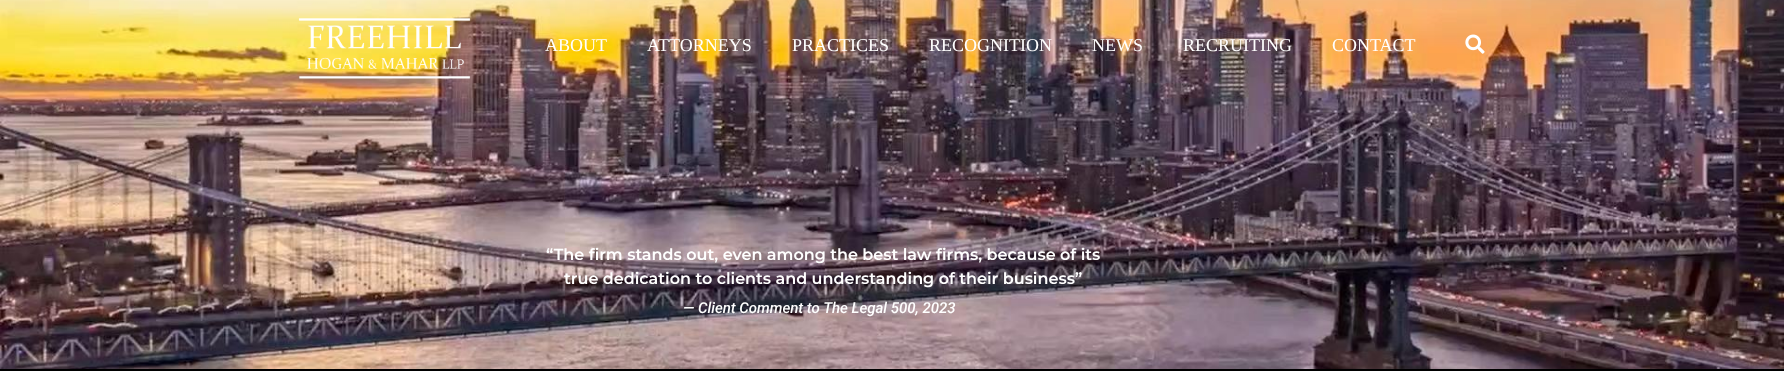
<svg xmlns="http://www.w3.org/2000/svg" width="1784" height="371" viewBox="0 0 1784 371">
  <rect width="100%" height="100%" fill="#000000"/>
  <image x="0" y="0" width="1784" height="369" href="img3.png"/>
  <image x="298" y="18" width="173" height="61" href="img1.png"/>
  <text x="545" y="51" font-family="Liberation Serif" font-size="18" fill="#ffffff">ABOUT</text>
  <text x="647" y="51" font-family="Liberation Serif" font-size="18" fill="#ffffff">ATTORNEYS</text>
  <text x="792" y="51" font-family="Liberation Serif" font-size="18" fill="#ffffff">PRACTICES</text>
  <text x="929" y="51" font-family="Liberation Serif" font-size="18" fill="#ffffff">RECOGNITION</text>
  <text x="1092" y="51" font-family="Liberation Serif" font-size="18" fill="#ffffff">NEWS</text>
  <text x="1183" y="51" font-family="Liberation Serif" font-size="18" fill="#ffffff">RECRUITING</text>
  <text x="1332" y="51" font-family="Liberation Serif" font-size="18" fill="#ffffff">CONTACT</text>
  <image x="1465" y="34" width="20" height="20" href="img2.png"/>
  <text x="546" y="260" font-family="Montserrat" font-size="16" font-weight="600" fill="#ffffff">“The firm stands out, even among the best law firms, because of its</text>
  <text x="564" y="284" font-family="Montserrat" font-size="16" font-weight="600" fill="#ffffff">true dedication to clients and understanding of their business”</text>
  <text x="683" y="313" font-family="Roboto" font-size="15" font-weight="500" font-style="italic" fill="#ffffff">— Client Comment to The Legal 500, 2023</text>
</svg>
